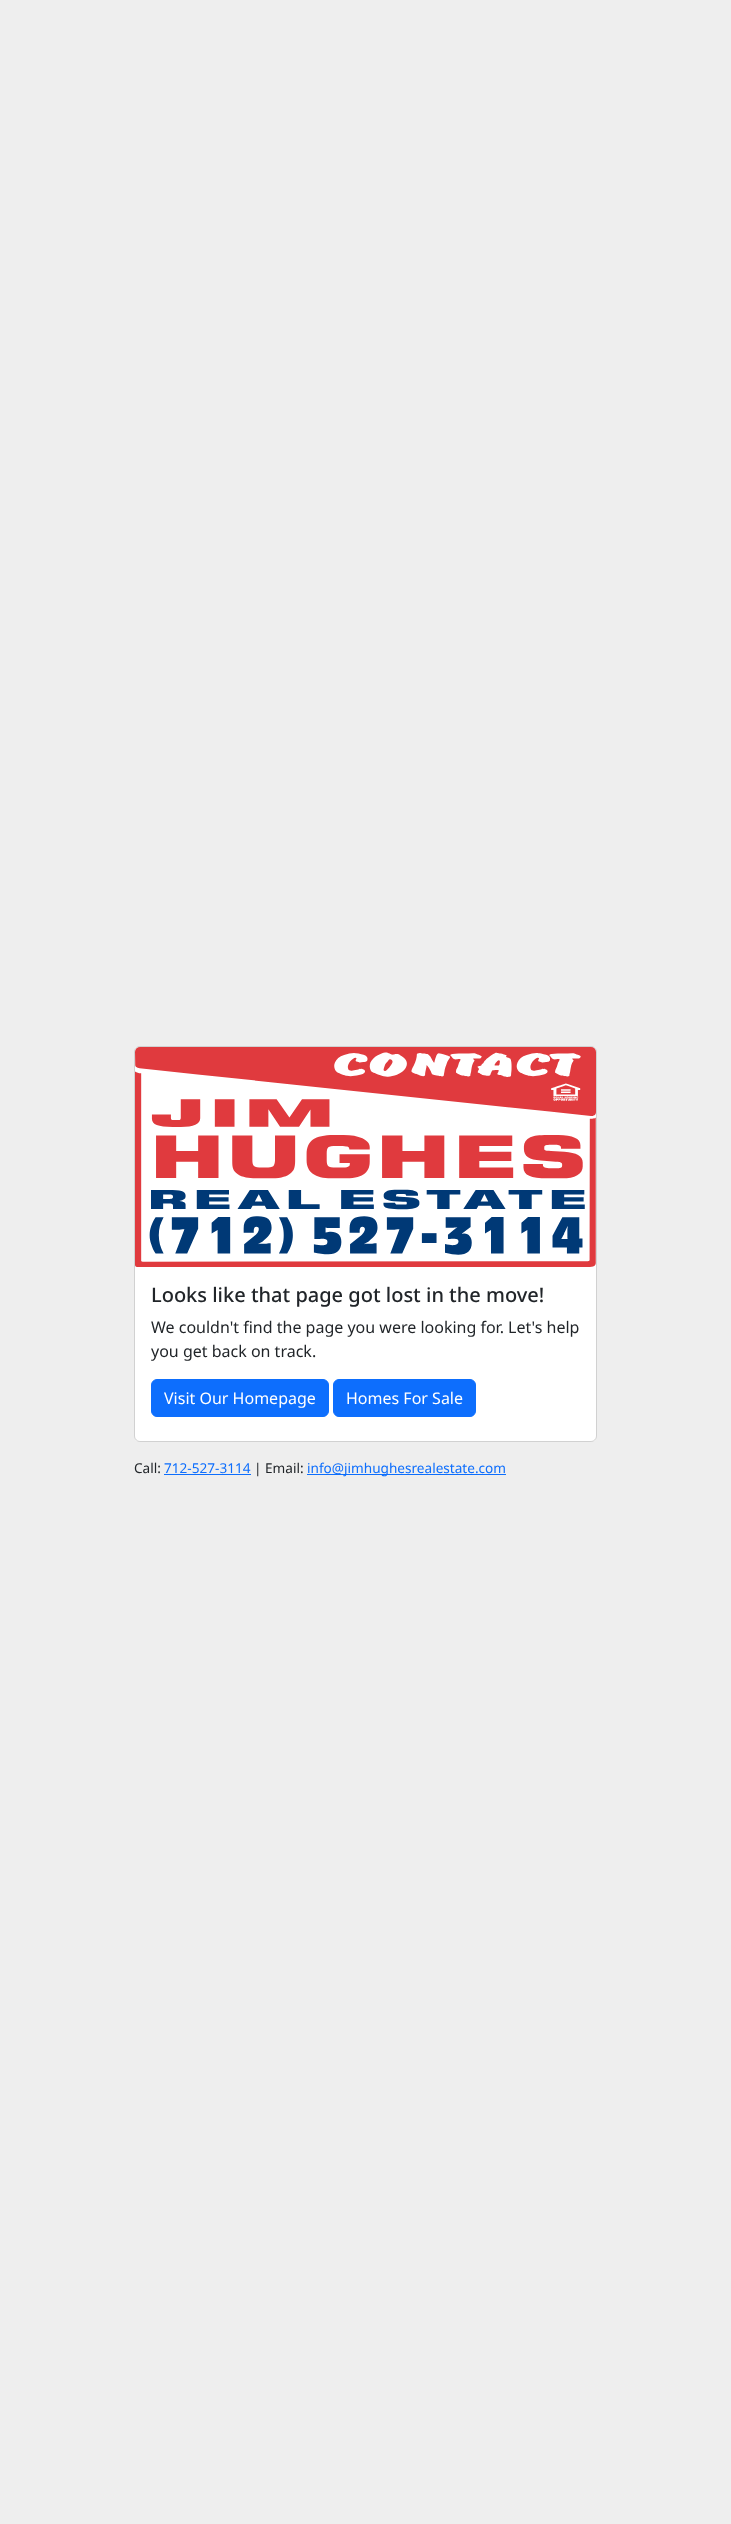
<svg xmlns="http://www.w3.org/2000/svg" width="731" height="2524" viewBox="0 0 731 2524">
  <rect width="100%" height="100%" fill="#eeeeee"/>
  <rect x="134" y="1046" width="463" height="396" rx="6" fill="#ffffff"/>
  <rect x="134.5" y="1046.5" width="462" height="395" rx="5.5" fill="none" stroke="#000000" stroke-opacity="0.18"/>
  <image x="135" y="1047" width="461" height="220" href="img1.png"/>
  <text x="151" y="1302" font-family="Noto Sans" font-size="20" font-weight="500" fill="#212529">Looks like that page got lost in the move!</text>
  <text x="151" y="1333" font-family="Noto Sans" font-size="16" fill="#212529">We couldn't find the page you were looking for. Let's help</text>
  <text x="151" y="1357" font-family="Noto Sans" font-size="16" fill="#212529">you get back on track.</text>
  <rect x="151.5" y="1379.5" width="177" height="37" rx="5.5" fill="#0d6efd" stroke="#0d6efd"/>
  <text x="164" y="1404" font-family="Noto Sans" font-size="16" fill="#ffffff">Visit Our Homepage</text>
  <rect x="333.5" y="1379.5" width="142" height="37" rx="5.5" fill="#0d6efd" stroke="#0d6efd"/>
  <text x="346" y="1404" font-family="Noto Sans" font-size="16" fill="#ffffff">Homes For Sale</text>
  <text x="134" y="1473" font-family="Noto Sans" font-size="13.6" fill="#212529">Call:</text>
  <text x="164" y="1473" font-family="Noto Sans" font-size="13.6" fill="#0d6efd">712-527-3114</text>
  <rect x="164" y="1474" width="87" height="1" fill="#0d6efd"/>
  <text x="254" y="1473" font-family="Noto Sans" font-size="13.6" fill="#212529">| Email:</text>
  <rect x="307" y="1474" width="199" height="1" fill="#0d6efd"/>
  <text x="307" y="1473" font-family="Noto Sans" font-size="13.6" fill="#0d6efd">info@jimhughesrealestate.com</text>
</svg>
